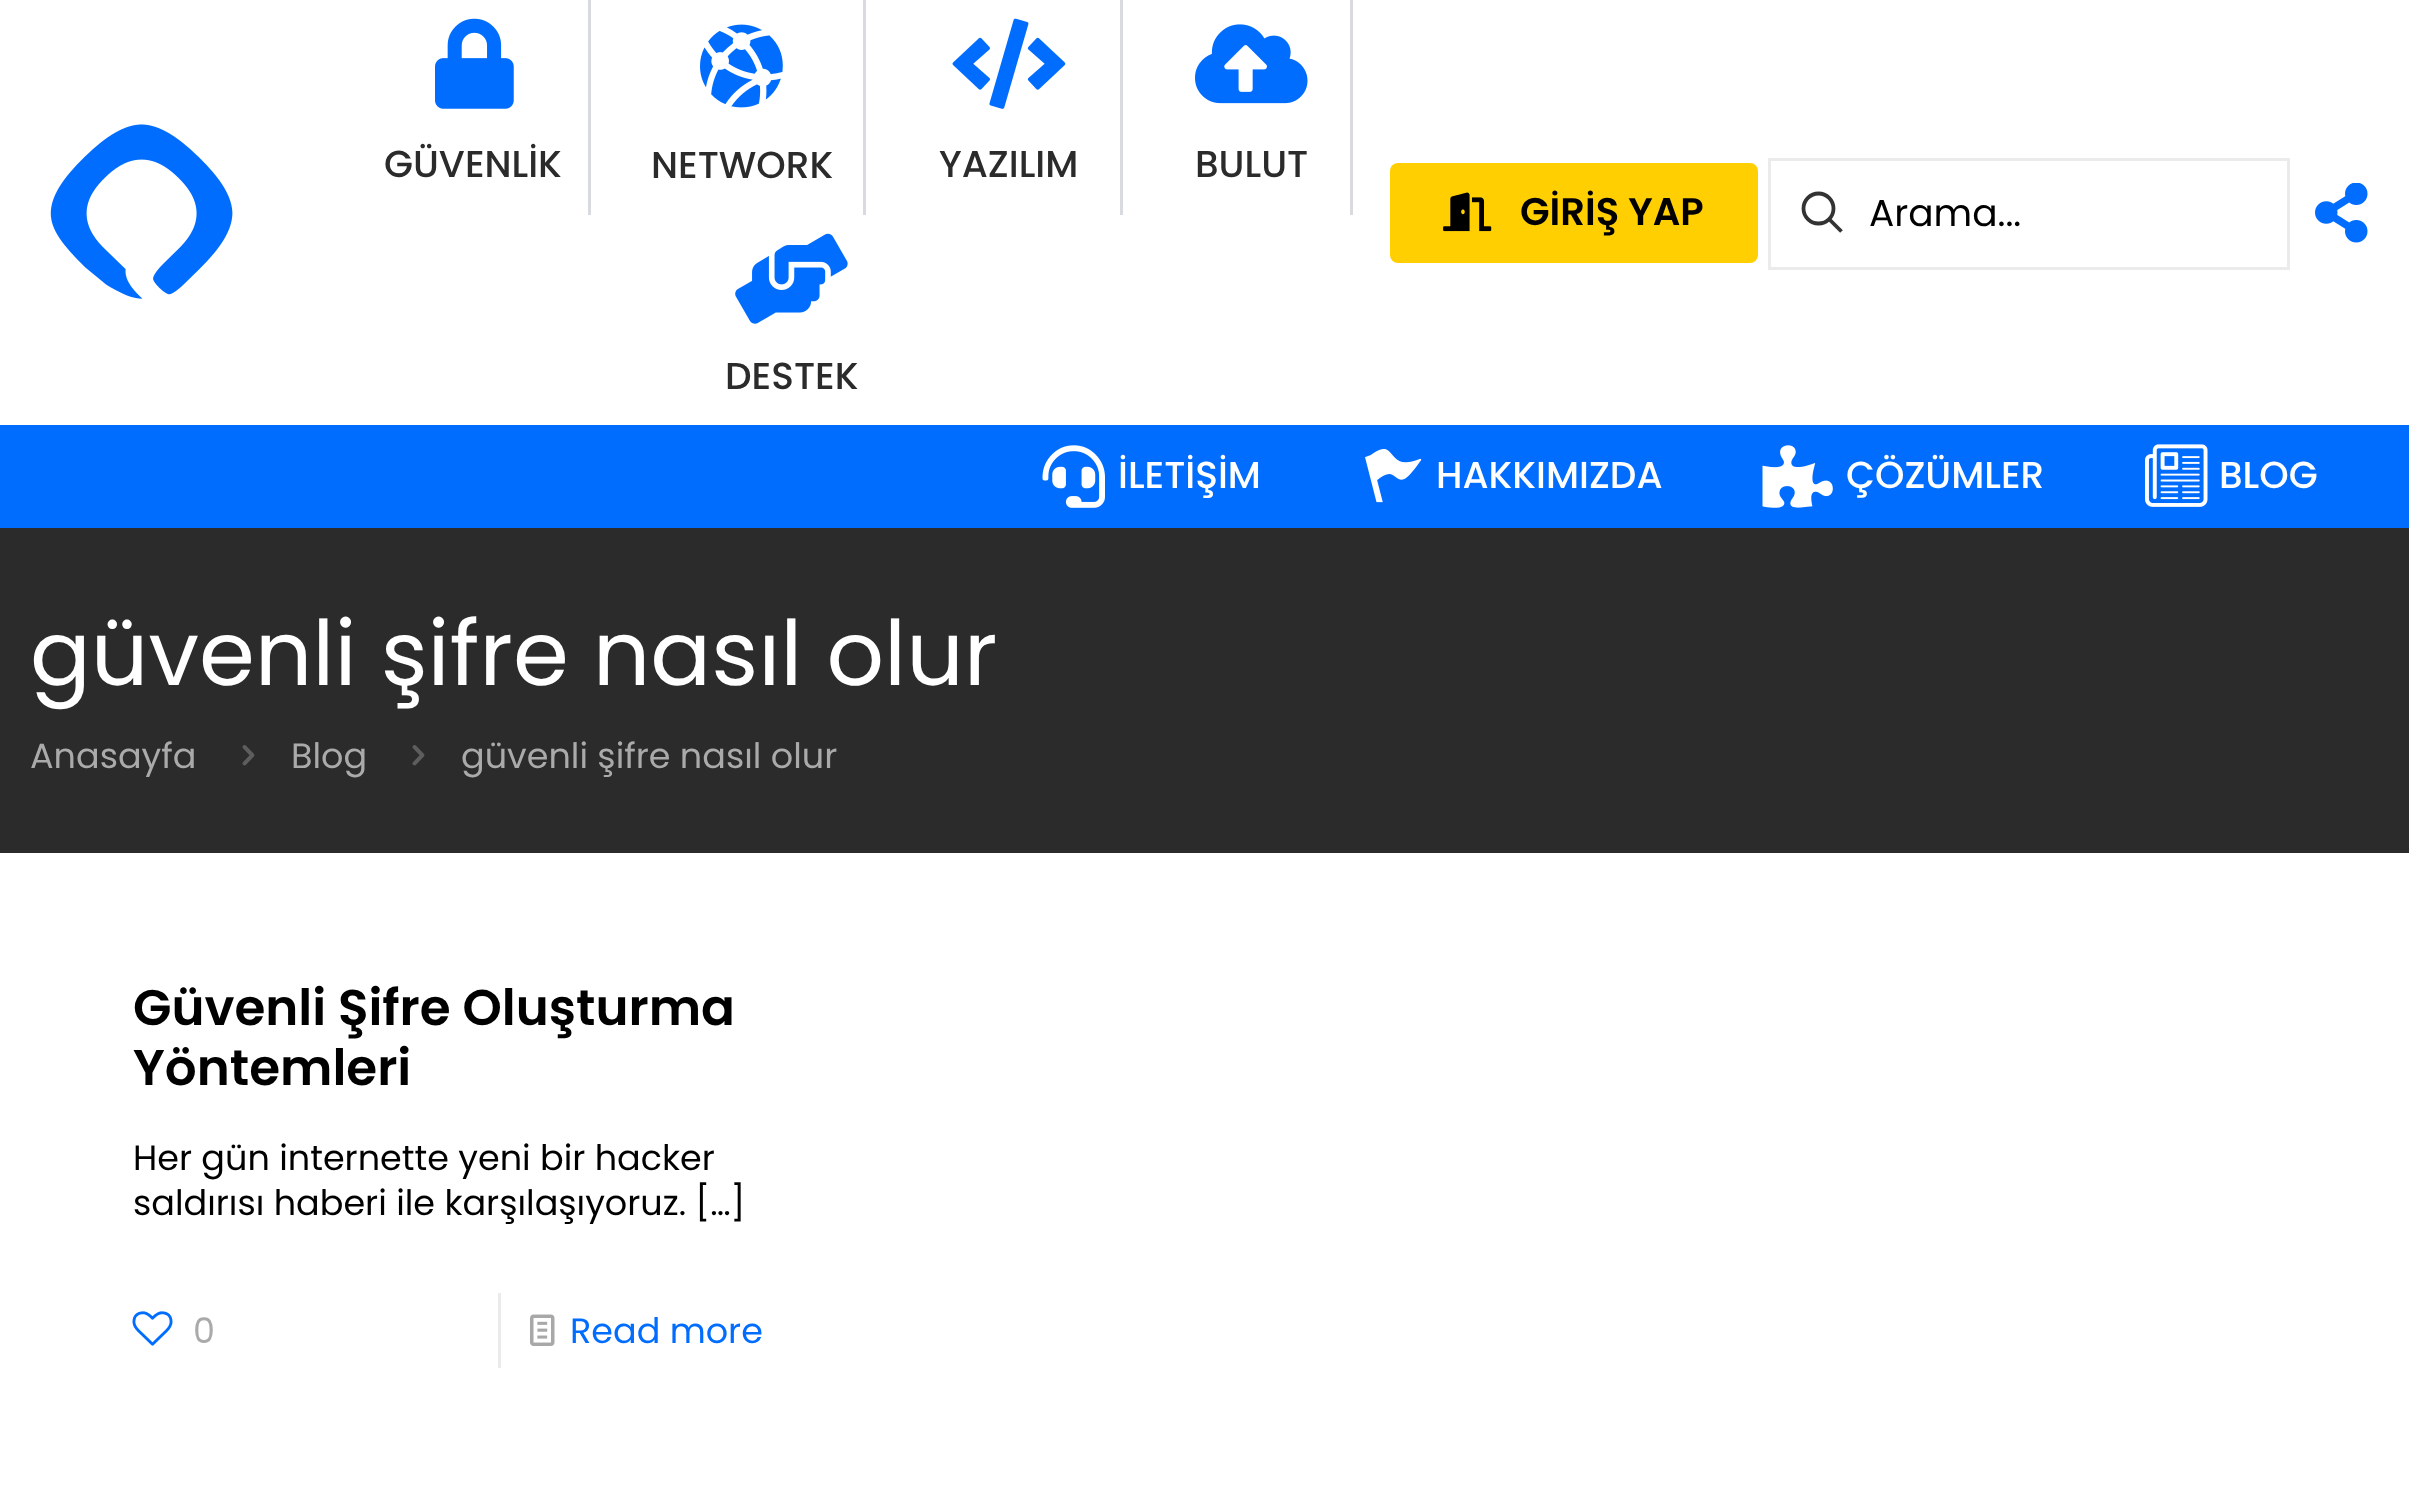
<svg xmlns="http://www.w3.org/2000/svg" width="2409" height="1491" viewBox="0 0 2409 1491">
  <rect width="100%" height="100%" fill="#ffffff"/>
  <image x="50" y="124" width="183" height="175" href="img1.png"/>
  <image x="435" y="18" width="79" height="91" href="img2.png"/>
  <text x="384" y="177" font-family="Poppins" font-size="37.5" font-weight="500" fill="#2b2b2b">GÜVENLİK</text>
  <rect x="588" y="0" width="3" height="215" fill="#d9dadf"/>
  <image x="700" y="24" width="83" height="84" href="img3.png"/>
  <text x="651" y="178" font-family="Poppins" font-size="37.5" font-weight="500" fill="#2b2b2b">NETWORK</text>
  <rect x="863" y="0" width="3" height="215" fill="#d9dadf"/>
  <image x="952" y="18" width="114" height="91" href="img4.png"/>
  <text x="939" y="177" font-family="Poppins" font-size="37.5" font-weight="500" fill="#2b2b2b">YAZILIM</text>
  <rect x="1120" y="0" width="3" height="215" fill="#d9dadf"/>
  <image x="1195" y="24" width="113" height="80" href="img5.png"/>
  <text x="1195" y="177" font-family="Poppins" font-size="37.5" font-weight="500" fill="#2b2b2b">BULUT</text>
  <rect x="1350" y="0" width="3" height="215" fill="#d9dadf"/>
  <image x="735" y="233" width="113" height="91" href="img6.png"/>
  <text x="725" y="389" font-family="Poppins" font-size="37.5" font-weight="500" fill="#2b2b2b">DESTEK</text>
  <rect x="1390" y="163" width="368" height="100" rx="8" fill="#ffcf01"/>
  <image x="1443" y="192" width="49" height="40" href="img7.png"/>
  <text x="1520" y="225" font-family="Poppins" font-size="38.5" font-weight="600" fill="#000000">GİRİŞ YAP</text>
  <rect x="1769.5" y="159.5" width="519" height="109" fill="none" stroke="#ebebeb" stroke-width="3"/>
  <circle cx="1818.5" cy="208.5" r="15" fill="none" stroke="#333333" stroke-width="3.8"/>
  <path d="M1829 219L1841.5 231.5" fill="none" stroke="#333333" stroke-width="3.8"/>
  <text x="1869" y="226" font-family="Poppins" font-size="37.5" fill="#000000">Arama...</text>
  <image x="2315" y="183" width="53" height="60" href="img8.png"/>
  <rect x="0" y="425" width="2409" height="103" fill="#006dff"/>
  <image x="1042" y="445" width="63" height="63" href="img9.png"/>
  <text x="1118" y="488" font-family="Poppins" font-size="37.5" font-weight="500" fill="#ffffff">İLETİŞİM</text>
  <image x="1365" y="448" width="57" height="55" href="img10.png"/>
  <text x="1436" y="488" font-family="Poppins" font-size="37.5" font-weight="500" fill="#ffffff">HAKKIMIZDA</text>
  <image x="1762" y="445" width="71" height="63" href="img11.png"/>
  <text x="1846" y="488" font-family="Poppins" font-size="37.5" font-weight="500" fill="#ffffff">ÇÖZÜMLER</text>
  <image x="2145" y="444" width="63" height="63" href="img12.png"/>
  <text x="2219" y="488" font-family="Poppins" font-size="37.5" font-weight="500" fill="#ffffff">BLOG</text>
  <rect x="0" y="528" width="2409" height="325" fill="#2b2b2b"/>
  <text x="30" y="685" font-family="Poppins" font-size="90" fill="#ffffff">güvenli şifre nasıl olur</text>
  <text x="30" y="768" font-family="Poppins" font-size="35" fill="#aaaaaa">Anasayfa</text>
  <image x="242" y="745" width="13" height="21" href="img13.png"/>
  <text x="291" y="768" font-family="Poppins" font-size="35" fill="#aaaaaa">Blog</text>
  <image x="412" y="745" width="13" height="21" href="img13.png"/>
  <text x="461" y="768" font-family="Poppins" font-size="35" fill="#aaaaaa">güvenli şifre nasıl olur</text>
  <text x="133" y="1025" font-family="Poppins" font-size="50" font-weight="600" fill="#000000">Güvenli Şifre Oluşturma</text>
  <text x="133" y="1085" font-family="Poppins" font-size="50" font-weight="600" fill="#000000">Yöntemleri</text>
  <text x="133" y="1170" font-family="Poppins" font-size="35" fill="#000000">Her gün internette yeni bir hacker</text>
  <text x="133" y="1215" font-family="Poppins" font-size="35" fill="#000000">saldırısı haberi ile karşılaşıyoruz. […]</text>
  <image x="132" y="1311" width="41" height="35" href="img14.png"/>
  <text x="193" y="1343" font-family="Poppins" font-size="35" fill="#aaaaaa">0</text>
  <rect x="498" y="1293" width="3" height="75" fill="#ebebeb"/>
  <image x="530" y="1314" width="25" height="32" href="img15.png"/>
  <text x="570" y="1343" font-family="Poppins" font-size="35" fill="#006dff">Read more</text>
</svg>
